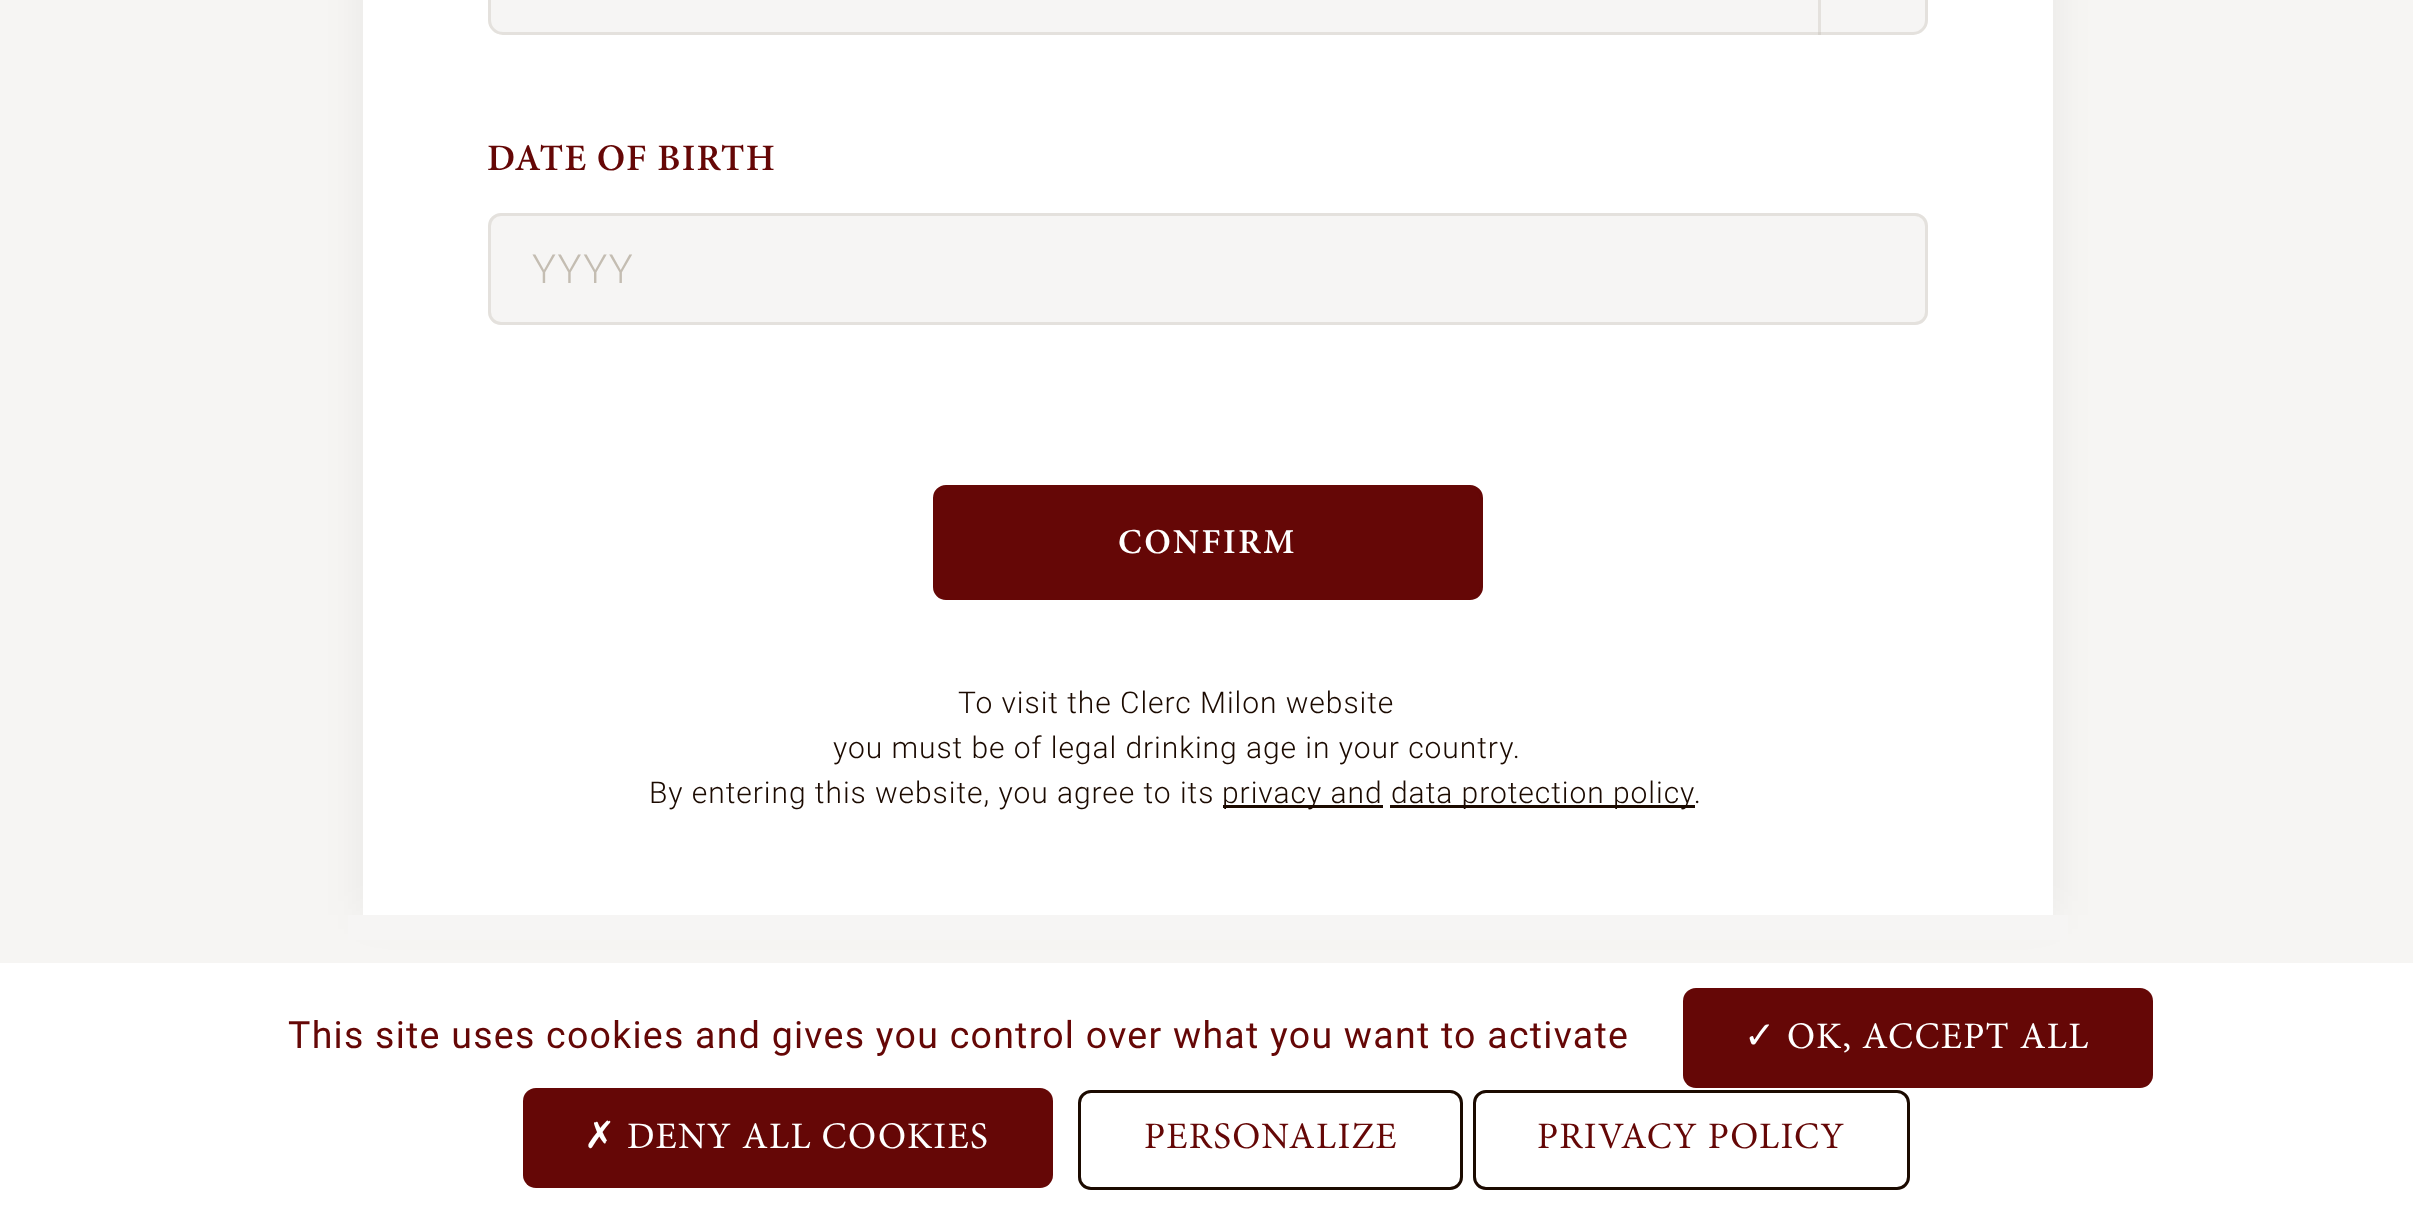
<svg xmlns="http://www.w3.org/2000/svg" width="2413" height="1213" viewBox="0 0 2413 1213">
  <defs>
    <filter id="blur1" x="-50%" y="-200%" width="200%" height="500%"><feGaussianBlur stdDeviation="20"/></filter>
  </defs>
  <rect width="100%" height="100%" fill="#f6f5f3"/>
  <rect x="363" y="-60" width="1690" height="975" fill="#000000" fill-opacity="0.06" filter="url(#blur1)"/>
  <rect x="363" y="0" width="1690" height="915" fill="#ffffff"/>
  <rect x="488" y="-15" width="1440" height="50" rx="15" fill="#f6f5f4"/>
  <rect x="489.5" y="-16.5" width="1437" height="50" rx="13.5" fill="none" stroke="#c4bdb2" stroke-opacity="0.35" stroke-width="3"/>
  <rect x="1818" y="0" width="3" height="35" fill="#c4bdb2" fill-opacity="0.35"/>
  <text x="487" y="170" font-family="Minion" font-size="37.5" font-weight="600" letter-spacing="1.25" fill="#650706">DATE OF BIRTH</text>
  <rect x="488" y="213" width="1440" height="112" rx="13" fill="#f6f5f4"/>
  <rect x="489.5" y="214.5" width="1437" height="109" rx="11.5" fill="none" stroke="#c4bdb2" stroke-opacity="0.35" stroke-width="3"/>
  <text x="532" y="283" font-family="Roboto" font-size="40" font-weight="300" letter-spacing="1.25" fill="#c4bdb2">YYYY</text>
  <rect x="934.5" y="486.5" width="547" height="112" rx="11.5" fill="#650706" stroke="#650706" stroke-width="3"/>
  <text x="1118" y="553" font-family="Minion" font-size="35" font-weight="600" letter-spacing="2.5" fill="#ffffff">CONFIRM</text>
  <text x="958" y="713" font-family="Roboto" font-size="30" font-weight="300" letter-spacing="0.95" fill="#1b0a00">To visit the Clerc Milon website</text>
  <text x="833" y="758" font-family="Roboto" font-size="30" font-weight="300" letter-spacing="0.95" fill="#1b0a00">you must be of legal drinking age in your country.</text>
  <text x="649" y="803" font-family="Roboto" font-size="30" font-weight="300" letter-spacing="0.95" fill="#1b0a00">By entering this website, you agree to its</text>
  <rect x="1223" y="805" width="160" height="3" fill="#1b0a00"/>
  <text x="1222" y="803" font-family="Roboto" font-size="30" font-weight="300" letter-spacing="0.95" fill="#1b0a00">privacy and</text>
  <rect x="1390" y="805" width="305" height="3" fill="#1b0a00"/>
  <text x="1391" y="803" font-family="Roboto" font-size="30" font-weight="300" letter-spacing="0.95" fill="#1b0a00">data protection policy.</text>
  <rect x="348" y="915" width="1720" height="25" fill="#f6f5f4"/>
  <rect x="0" y="963" width="2413" height="250" fill="#ffffff"/>
  <text x="288" y="1048" font-family="Roboto" font-size="37.5" letter-spacing="1.25" fill="#650706">This site uses cookies and gives you control over what you want to activate</text>
  <rect x="1683" y="988" width="470" height="100" rx="13" fill="#650706"/>
  <text x="1744" y="1048" font-family="DejaVu Sans" font-size="37.5" letter-spacing="1.25" fill="#ffffff">✓</text>
  <text x="1787" y="1048" font-family="Minion" font-size="37.5" letter-spacing="1.25" fill="#ffffff">OK, ACCEPT ALL</text>
  <rect x="523" y="1088" width="530" height="100" rx="13" fill="#650706"/>
  <text x="584" y="1148" font-family="DejaVu Sans" font-size="37.5" letter-spacing="1.25" fill="#ffffff">✗</text>
  <text x="627" y="1148" font-family="Minion" font-size="37.5" letter-spacing="1.25" fill="#ffffff">DENY ALL COOKIES</text>
  <rect x="1079.5" y="1091.5" width="382" height="97" rx="11.5" fill="none" stroke="#1b0a00" stroke-width="3"/>
  <text x="1144" y="1148" font-family="Minion" font-size="37.5" letter-spacing="1.25" fill="#650706">PERSONALIZE</text>
  <rect x="1474.5" y="1091.5" width="434" height="97" rx="11.5" fill="none" stroke="#1b0a00" stroke-width="3"/>
  <text x="1537" y="1148" font-family="Minion" font-size="37.5" letter-spacing="1.25" fill="#650706">PRIVACY POLICY</text>
</svg>
